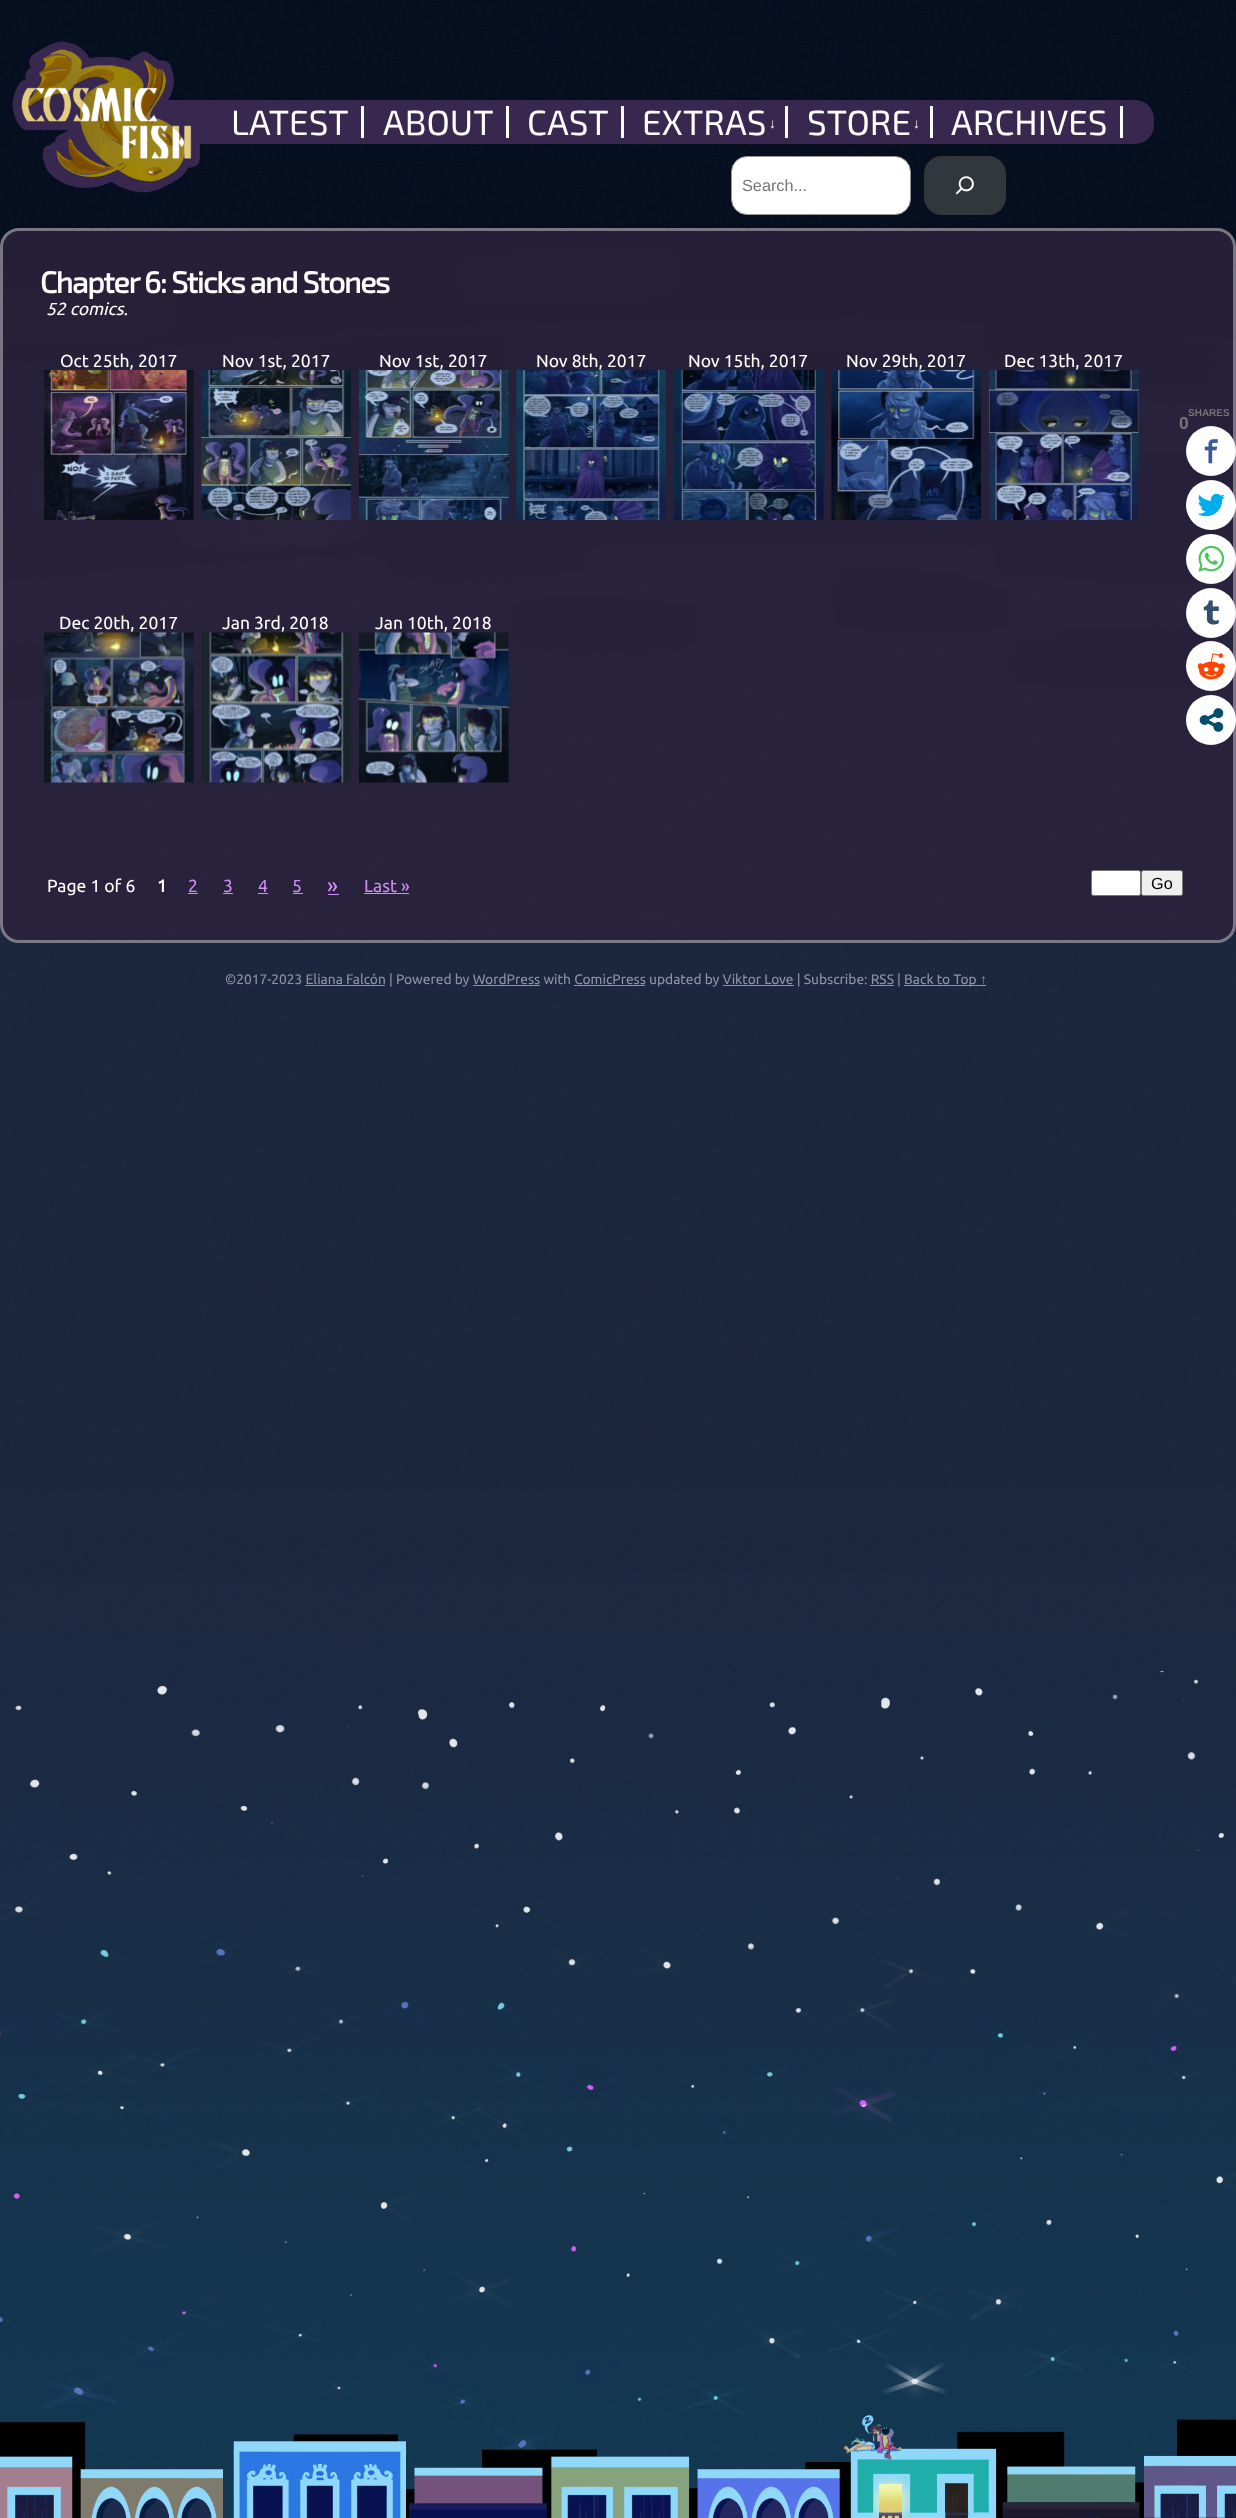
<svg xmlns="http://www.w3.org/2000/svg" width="1236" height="2518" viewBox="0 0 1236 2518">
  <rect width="100%" height="100%" fill="#ffffff"/>
  <image x="0" y="0" width="1236" height="2518" href="img1.png"/>
  <rect x="144" y="100" width="1010" height="44" rx="19" fill="#38284f"/>
  <image x="12" y="41" width="188" height="152" href="img2.png"/>
  <rect x="361" y="106" width="3" height="32" fill="#ffffff"/>
  <text x="231" y="135" font-family="'Exo 2'" font-size="35" fill="#ffffff">LATEST</text>
  <rect x="506" y="106" width="3" height="32" fill="#ffffff"/>
  <text x="383" y="135" font-family="'Exo 2'" font-size="35" fill="#ffffff">ABOUT</text>
  <rect x="621" y="106" width="3" height="32" fill="#ffffff"/>
  <text x="527" y="135" font-family="'Exo 2'" font-size="35" fill="#ffffff">CAST</text>
  <rect x="785" y="106" width="3" height="32" fill="#ffffff"/>
  <text x="642" y="135" font-family="'Exo 2'" font-size="35" fill="#ffffff">EXTRAS</text>
  <text x="769" y="128" font-family="Liberation Serif" font-size="13.75" fill="#ffffff">↓</text>
  <rect x="930" y="106" width="3" height="32" fill="#ffffff"/>
  <text x="807" y="135" font-family="'Exo 2'" font-size="35" fill="#ffffff">STORE</text>
  <text x="913" y="128" font-family="Liberation Serif" font-size="13.75" fill="#ffffff">↓</text>
  <rect x="1120" y="106" width="3" height="32" fill="#ffffff"/>
  <text x="951" y="135" font-family="'Exo 2'" font-size="35" fill="#ffffff">ARCHIVES</text>
  <rect x="731.5" y="156.5" width="179" height="58" rx="15.5" fill="#ffffff" stroke="#949494"/>
  <text x="742" y="191" font-family="Liberation Sans" font-size="16.25" fill="#757575">Search...</text>
  <rect x="924" y="156" width="82" height="59" rx="18" fill="#32373c"/>
  <image x="955" y="176" width="19" height="19" href="img3.png"/>
  <rect x="0" y="228" width="1236" height="715" rx="19" fill="#2b223c" fill-opacity="0.85"/>
  <rect x="1.5" y="229.5" width="1233" height="712" rx="17.5" fill="none" stroke="#ffffff" stroke-opacity="0.39" stroke-width="3"/>
  <text x="40" y="293" font-family="'Exo 2'" font-size="30" font-weight="bold" letter-spacing="-1.25" fill="#ffffff">Chapter 6: Sticks and Stones</text>
  <text x="46" y="315" font-family="Ubuntu" font-size="17.5" font-style="italic" fill="#ffffff">52 comics.</text>
  <text x="60" y="367" font-family="Ubuntu" font-size="17.5" fill="#ffffff">Oct 25th, 2017</text>
  <image x="44" y="370" width="150" height="150" href="img4.png"/>
  <text x="222" y="367" font-family="Ubuntu" font-size="17.5" fill="#ffffff">Nov 1st, 2017</text>
  <image x="201" y="370" width="151" height="150" href="img5.png"/>
  <text x="379" y="367" font-family="Ubuntu" font-size="17.5" fill="#ffffff">Nov 1st, 2017</text>
  <image x="358" y="370" width="151" height="150" href="img6.png"/>
  <text x="536" y="367" font-family="Ubuntu" font-size="17.5" fill="#ffffff">Nov 8th, 2017</text>
  <image x="516" y="370" width="150" height="150" href="img7.png"/>
  <text x="688" y="367" font-family="Ubuntu" font-size="17.5" fill="#ffffff">Nov 15th, 2017</text>
  <image x="674" y="370" width="150" height="150" href="img8.png"/>
  <text x="846" y="367" font-family="Ubuntu" font-size="17.5" fill="#ffffff">Nov 29th, 2017</text>
  <image x="831" y="370" width="150" height="150" href="img9.png"/>
  <text x="1004" y="367" font-family="Ubuntu" font-size="17.5" fill="#ffffff">Dec 13th, 2017</text>
  <image x="988" y="370" width="151" height="150" href="img10.png"/>
  <text x="59" y="629" font-family="Ubuntu" font-size="17.5" fill="#ffffff">Dec 20th, 2017</text>
  <image x="44" y="632" width="150" height="151" href="img11.png"/>
  <text x="222" y="629" font-family="Ubuntu" font-size="17.5" fill="#ffffff">Jan 3rd, 2018</text>
  <image x="201" y="632" width="150" height="151" href="img12.png"/>
  <text x="375" y="629" font-family="Ubuntu" font-size="17.5" fill="#ffffff">Jan 10th, 2018</text>
  <image x="359" y="632" width="150" height="151" href="img13.png"/>
  <text x="47" y="892" font-family="Ubuntu" font-size="17.5" fill="#ffffff">Page 1 of 6</text>
  <text x="157" y="892" font-family="Ubuntu" font-size="17.5" font-weight="bold" fill="#ffffff">1</text>
  <text x="188" y="892" font-family="Ubuntu" font-size="17.5" fill="#d18df4">2</text>
  <rect x="188" y="893" width="10" height="1" fill="#d18df4"/>
  <text x="223" y="892" font-family="Ubuntu" font-size="17.5" fill="#d18df4">3</text>
  <rect x="223" y="893" width="10" height="1" fill="#d18df4"/>
  <text x="258" y="892" font-family="Ubuntu" font-size="17.5" fill="#d18df4">4</text>
  <rect x="258" y="893" width="10" height="1" fill="#d18df4"/>
  <text x="292" y="892" font-family="Ubuntu" font-size="17.5" fill="#d18df4">5</text>
  <rect x="293" y="893" width="10" height="1" fill="#d18df4"/>
  <text x="327" y="893" font-family="Ubuntu" font-size="22" fill="#d18df4">»</text>
  <rect x="328" y="894" width="11" height="1" fill="#d18df4"/>
  <text x="364" y="892" font-family="Ubuntu" font-size="17.5" fill="#d18df4">Last »</text>
  <rect x="364" y="893" width="45" height="1" fill="#d18df4"/>
  <rect x="1091.5" y="870.5" width="49" height="25" rx="2" fill="#ffffff" stroke="#767676"/>
  <rect x="1141.5" y="870.5" width="41" height="25" rx="2" fill="#efefef" stroke="#767676"/>
  <text x="1151" y="889" font-family="Liberation Sans" font-size="16.25" fill="#000000">Go</text>
  <text x="225" y="984" font-family="Ubuntu" font-size="13.75" fill="#8e939f">©2017-2023 Eliana Falcón | Powered by WordPress with ComicPress updated by Viktor Love | Subscribe: RSS |</text>
  <rect x="904" y="985" width="82" height="1" fill="#ffffff" fill-opacity="0.5"/>
  <text x="904" y="984" font-family="Ubuntu" font-size="13.75" fill="#8e939f">Back to Top</text>
  <text x="980" y="984" font-family="Liberation Serif" font-size="13.75" fill="#8e939f">↑</text>
  <rect x="305" y="985" width="80" height="1" fill="#ffffff" fill-opacity="0.5"/>
  <rect x="473" y="985" width="67" height="1" fill="#ffffff" fill-opacity="0.5"/>
  <rect x="574" y="985" width="71" height="1" fill="#ffffff" fill-opacity="0.5"/>
  <rect x="723" y="985" width="71" height="1" fill="#ffffff" fill-opacity="0.5"/>
  <rect x="870" y="985" width="24" height="1" fill="#ffffff" fill-opacity="0.5"/>
  <text x="1188" y="416" font-family="Liberation Sans" font-size="10" font-weight="bold" fill="#757575">SHARES</text>
  <circle cx="1211" cy="451" r="25" fill="#ffffff"/>
  <text x="1179" y="429" font-family="Liberation Sans" font-size="17.5" font-weight="bold" fill="#757575">0</text>
  <image x="1204" y="439" width="14" height="25" href="img14.png"/>
  <circle cx="1211" cy="505" r="25" fill="#ffffff"/>
  <image x="1198" y="493" width="27" height="24" href="img15.png"/>
  <circle cx="1211" cy="559" r="25" fill="#ffffff"/>
  <image x="1198" y="545" width="27" height="27" href="img16.png"/>
  <circle cx="1211" cy="613" r="25" fill="#ffffff"/>
  <image x="1203" y="600" width="16" height="25" href="img17.png"/>
  <circle cx="1211" cy="666" r="25" fill="#ffffff"/>
  <image x="1198" y="653" width="27" height="27" href="img18.png"/>
  <circle cx="1211" cy="720" r="25" fill="#ffffff"/>
  <image x="1199" y="708" width="25" height="24" href="img19.png"/>
</svg>
